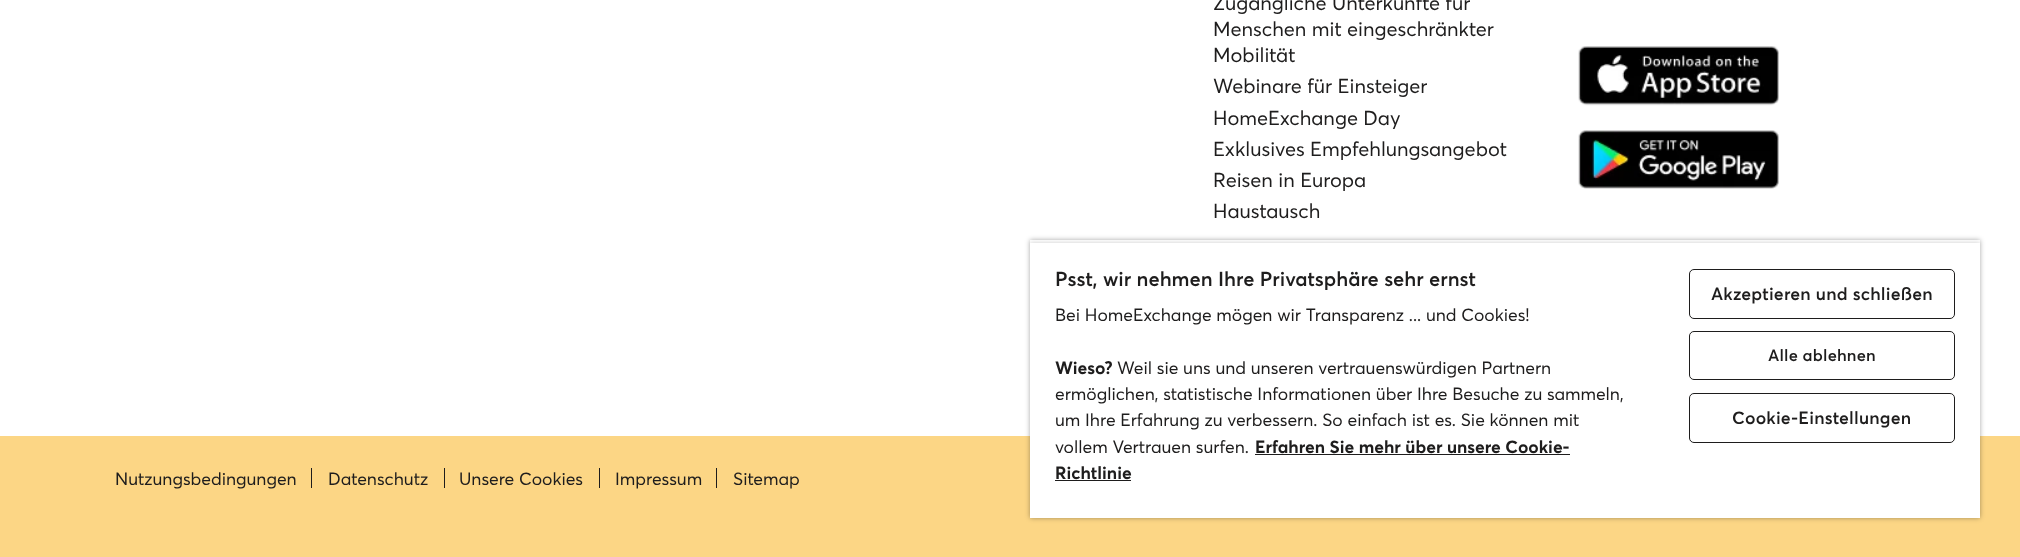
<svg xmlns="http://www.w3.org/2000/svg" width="2020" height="557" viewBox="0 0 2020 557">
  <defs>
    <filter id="blur1" x="-50%" y="-200%" width="200%" height="500%"><feGaussianBlur stdDeviation="2.5"/></filter>
    <clipPath id="clip1"><rect x="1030" y="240" width="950" height="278"/></clipPath>
  </defs>
  <rect width="100%" height="100%" fill="#ffffff"/>
  <text x="1213" y="10" font-family="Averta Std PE" font-size="20" fill="#1e1d1d">Zugängliche Unterkünfte für</text>
  <text x="1213" y="36" font-family="Averta Std PE" font-size="20" fill="#1e1d1d">Menschen mit eingeschränkter</text>
  <text x="1213" y="62" font-family="Averta Std PE" font-size="20" fill="#1e1d1d">Mobilität</text>
  <text x="1213" y="93" font-family="Averta Std PE" font-size="20" fill="#1e1d1d">Webinare für Einsteiger</text>
  <text x="1213" y="125" font-family="Averta Std PE" font-size="20" fill="#1e1d1d">HomeExchange Day</text>
  <text x="1213" y="156" font-family="Averta Std PE" font-size="20" fill="#1e1d1d">Exklusives Empfehlungsangebot</text>
  <text x="1213" y="187" font-family="Averta Std PE" font-size="20" fill="#1e1d1d">Reisen in Europa</text>
  <text x="1213" y="218" font-family="Averta Std PE" font-size="20" fill="#1e1d1d">Haustausch</text>
  <image x="1578" y="46" width="201" height="60" href="img1.png"/>
  <image x="1578" y="130" width="201" height="59" href="img2.png"/>
  <rect x="0" y="436" width="2020" height="121" fill="#fcd685"/>
  <text x="115" y="485" font-family="Averta Std PE" font-size="17.5" fill="#1e1d1d">Nutzungsbedingungen</text>
  <rect x="311" y="468" width="1" height="20" fill="#1e1d1d"/>
  <text x="328" y="485" font-family="Averta Std PE" font-size="17.5" fill="#1e1d1d">Datenschutz</text>
  <rect x="444" y="468" width="1" height="20" fill="#1e1d1d"/>
  <text x="459" y="485" font-family="Averta Std PE" font-size="17.5" fill="#1e1d1d">Unsere Cookies</text>
  <rect x="599" y="468" width="1" height="20" fill="#1e1d1d"/>
  <text x="615" y="485" font-family="Averta Std PE" font-size="17.5" fill="#1e1d1d">Impressum</text>
  <rect x="716" y="468" width="1" height="20" fill="#1e1d1d"/>
  <text x="733" y="485" font-family="Averta Std PE" font-size="17.5" fill="#1e1d1d">Sitemap</text>
  <rect x="1030" y="240" width="950" height="278" fill="#000000" fill-opacity="0.35" filter="url(#blur1)"/>
  <rect x="1030" y="240" width="950" height="3" fill="#ffffff"/>
  <g clip-path="url(#clip1)">
    <rect x="1030" y="243" width="950" height="275" fill="#000000" fill-opacity="0.2" filter="url(#blur1)"/>
  </g>
  <rect x="1030" y="243" width="950" height="275" fill="#ffffff"/>
  <text x="1055" y="286" font-family="Averta Std PE" font-size="20" font-weight="600" fill="#1e1d1d">Psst, wir nehmen Ihre Privatsphäre sehr ernst</text>
  <text x="1055" y="321" font-family="Averta Std PE" font-size="17.5" fill="#1e1d1d">Bei HomeExchange mögen wir Transparenz ... und Cookies!</text>
  <text x="1055" y="374" font-family="Averta Std PE" font-size="17.5" font-weight="bold" fill="#1e1d1d">Wieso?</text>
  <text x="1117" y="374" font-family="Averta Std PE" font-size="17.5" fill="#1e1d1d">Weil sie uns und unseren vertrauenswürdigen Partnern</text>
  <text x="1055" y="400" font-family="Averta Std PE" font-size="17.5" fill="#1e1d1d">ermöglichen, statistische Informationen über Ihre Besuche zu sammeln,</text>
  <text x="1055" y="426" font-family="Averta Std PE" font-size="17.5" fill="#1e1d1d">um Ihre Erfahrung zu verbessern. So einfach ist es. Sie können mit</text>
  <text x="1055" y="453" font-family="Averta Std PE" font-size="17.5" fill="#1e1d1d">vollem Vertrauen surfen.</text>
  <text x="1255" y="453" font-family="Averta Std PE" font-size="17.5" font-weight="bold" fill="#1e1d1d">Erfahren Sie mehr über unsere Cookie-</text>
  <rect x="1255" y="454" width="315" height="1" fill="#1e1d1d"/>
  <text x="1055" y="479" font-family="Averta Std PE" font-size="17.5" font-weight="bold" fill="#1e1d1d">Richtlinie</text>
  <rect x="1055" y="480" width="76" height="1" fill="#1e1d1d"/>
  <rect x="1689.5" y="269.5" width="265" height="49" rx="4.5" fill="none" stroke="#1e1d1d"/>
  <text x="1711" y="300" font-family="Averta Std PE" font-size="17.5" font-weight="600" letter-spacing="0.2" fill="#1e1d1d">Akzeptieren und schließen</text>
  <rect x="1689.5" y="331.5" width="265" height="48" rx="4.5" fill="none" stroke="#1e1d1d"/>
  <text x="1768" y="361" font-family="Averta Std PE" font-size="16.25" font-weight="600" letter-spacing="0.2" fill="#1e1d1d">Alle ablehnen</text>
  <rect x="1689.5" y="393.5" width="265" height="49" rx="4.5" fill="none" stroke="#1e1d1d"/>
  <text x="1732" y="424" font-family="Averta Std PE" font-size="17.5" font-weight="600" letter-spacing="0.2" fill="#1e1d1d">Cookie-Einstellungen</text>
</svg>
